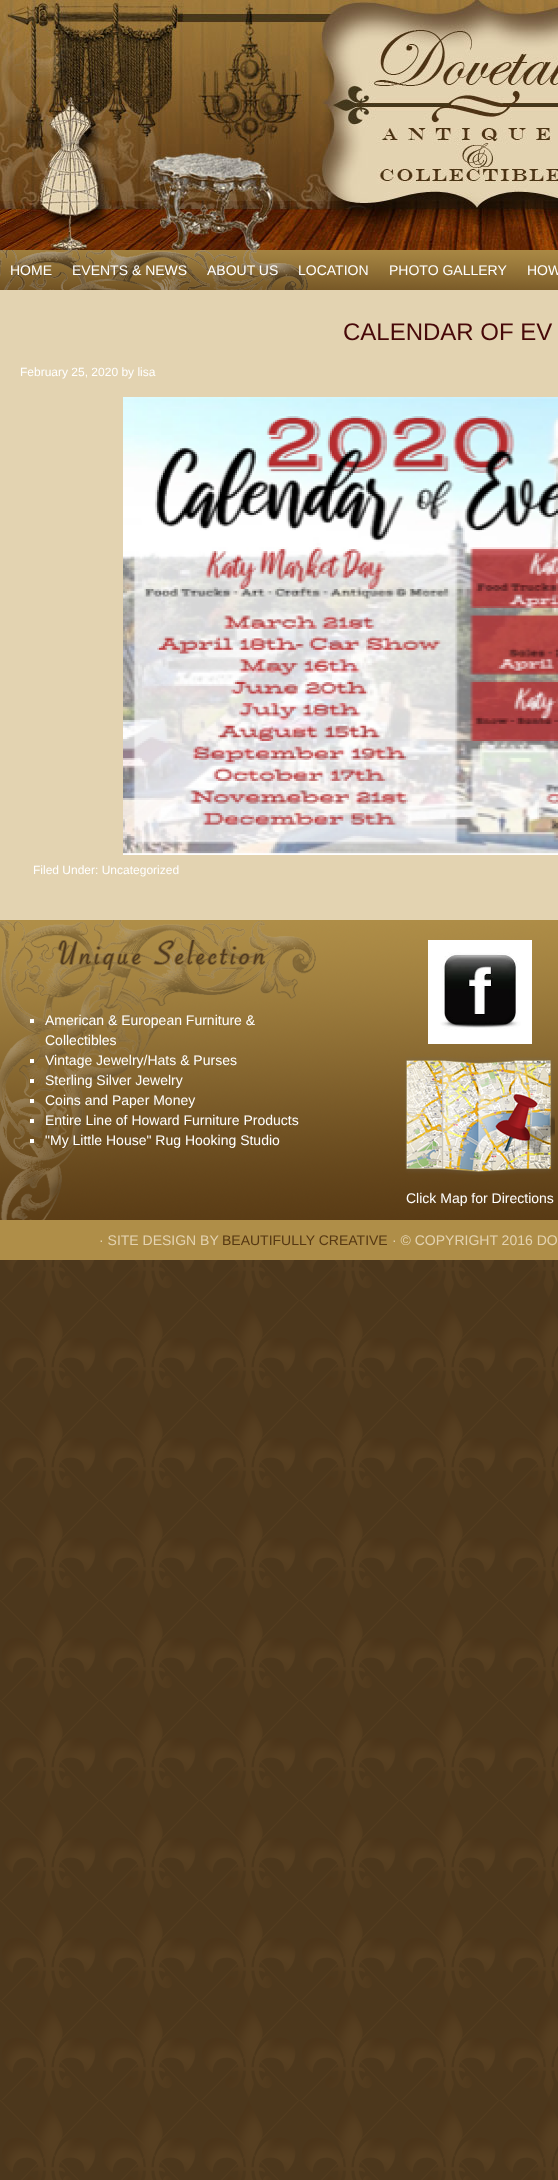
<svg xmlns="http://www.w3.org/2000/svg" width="558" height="2180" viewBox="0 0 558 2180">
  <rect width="100%" height="100%" fill="#ffffff"/>
  <image x="0" y="1260" width="558" height="920" href="img1.png"/>
  <rect x="0" y="290" width="558" height="630" fill="#e3d3b1"/>
  <image x="0" y="0" width="558" height="250" href="img2.png"/>
  <image x="0" y="250" width="558" height="40" href="img3.png"/>
  <text x="10" y="275" font-family="Liberation Sans" font-size="14" fill="#ffffff">HOME</text>
  <text x="72" y="275" font-family="Liberation Sans" font-size="14" fill="#ffffff">EVENTS &amp; NEWS</text>
  <text x="207" y="275" font-family="Liberation Sans" font-size="14" fill="#ffffff">ABOUT US</text>
  <text x="298" y="275" font-family="Liberation Sans" font-size="14" fill="#ffffff">LOCATION</text>
  <text x="389" y="275" font-family="Liberation Sans" font-size="14" fill="#ffffff">PHOTO GALLERY</text>
  <text x="527" y="275" font-family="Liberation Sans" font-size="14" fill="#ffffff">HOW</text>
  <text x="343" y="340" font-family="Liberation Sans" font-size="24" fill="#470909">CALENDAR OF EV</text>
  <text x="20" y="376" font-family="Liberation Sans" font-size="12" fill="#ffffff">February 25, 2020 by lisa</text>
  <image x="123" y="397" width="435" height="458" href="img4.png"/>
  <text x="33" y="874" font-family="Liberation Sans" font-size="12" fill="#ffffff">Filed Under: Uncategorized</text>
  <image x="0" y="920" width="558" height="300" href="img5.png"/>
  <image x="58" y="940" width="208" height="30" href="img6.png"/>
  <rect x="30" y="1019" width="4" height="4" fill="#ffffff"/>
  <text x="45" y="1025" font-family="Liberation Sans" font-size="14" fill="#ffffff">American &amp; European Furniture &amp;</text>
  <text x="45" y="1045" font-family="Liberation Sans" font-size="14" fill="#ffffff">Collectibles</text>
  <rect x="30" y="1059" width="4" height="4" fill="#ffffff"/>
  <text x="45" y="1065" font-family="Liberation Sans" font-size="14" fill="#ffffff">Vintage Jewelry/Hats &amp; Purses</text>
  <rect x="30" y="1079" width="4" height="4" fill="#ffffff"/>
  <text x="45" y="1085" font-family="Liberation Sans" font-size="14" fill="#ffffff">Sterling Silver Jewelry</text>
  <rect x="30" y="1099" width="4" height="4" fill="#ffffff"/>
  <text x="45" y="1105" font-family="Liberation Sans" font-size="14" fill="#ffffff">Coins and Paper Money</text>
  <rect x="30" y="1119" width="4" height="4" fill="#ffffff"/>
  <text x="45" y="1125" font-family="Liberation Sans" font-size="14" fill="#ffffff">Entire Line of Howard Furniture Products</text>
  <rect x="30" y="1139" width="4" height="4" fill="#ffffff"/>
  <text x="45" y="1145" font-family="Liberation Sans" font-size="14" fill="#ffffff">"My Little House" Rug Hooking Studio</text>
  <image x="428" y="940" width="104" height="104" href="img7.png"/>
  <image x="405" y="1057" width="150" height="118" href="img8.png"/>
  <text x="406" y="1203" font-family="Liberation Sans" font-size="14" fill="#ffffff">Click Map for Directions</text>
  <rect x="0" y="1220" width="558" height="40" fill="#af8e48"/>
  <text x="99" y="1245" font-family="Liberation Sans" font-size="14" fill="#e4d3b1">· SITE DESIGN BY</text>
  <text x="222" y="1245" font-family="Liberation Sans" font-size="14" fill="#563813">BEAUTIFULLY CREATIVE</text>
  <text x="392" y="1245" font-family="Liberation Sans" font-size="14" fill="#e4d3b1">· © COPYRIGHT 2016 DO</text>
</svg>
